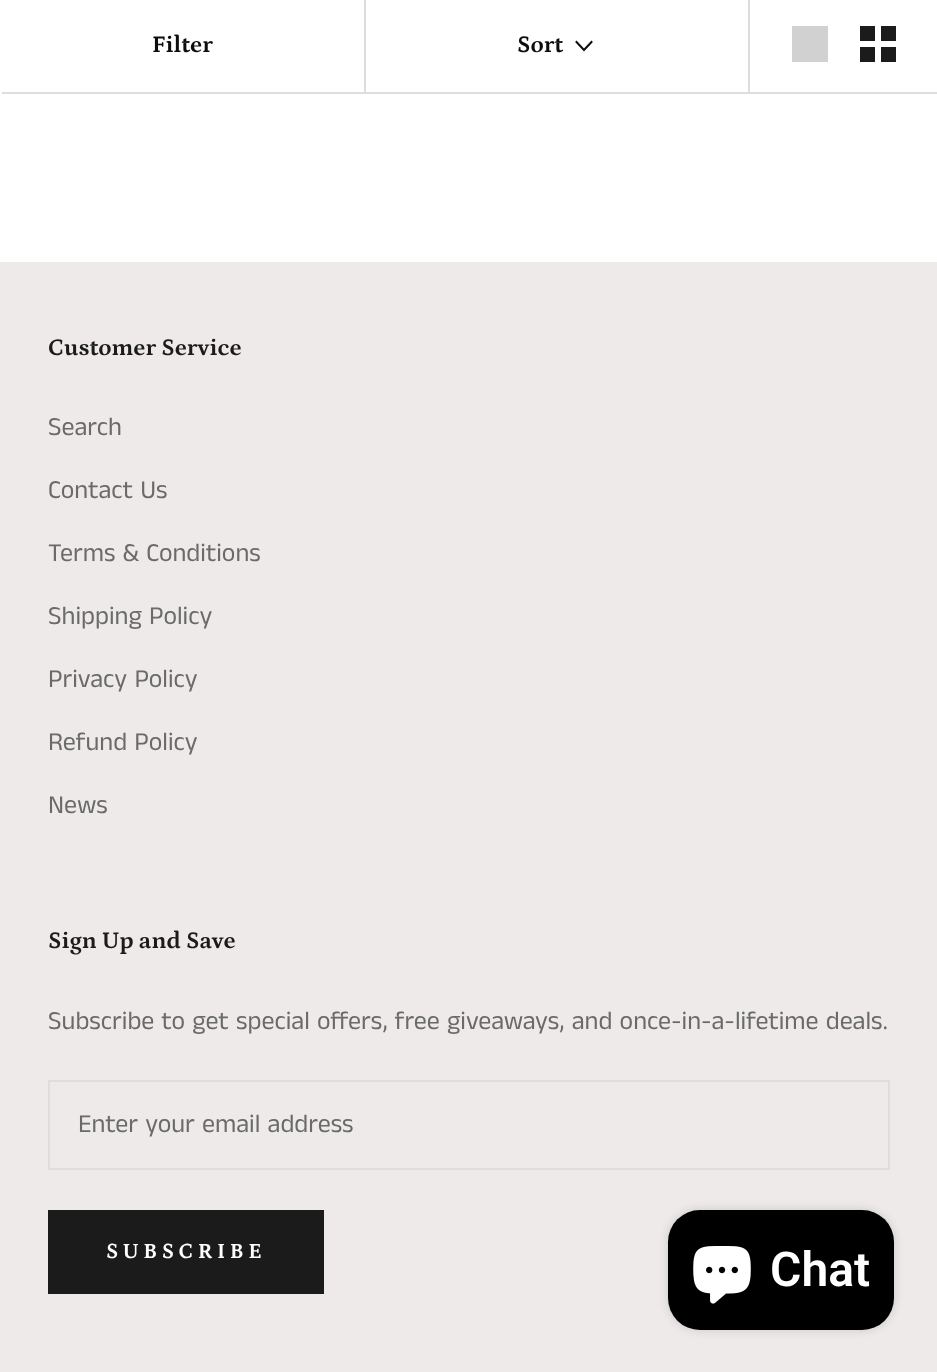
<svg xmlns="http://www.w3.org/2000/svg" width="937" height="1372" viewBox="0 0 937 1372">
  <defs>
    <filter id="blur1" x="-50%" y="-200%" width="200%" height="500%"><feGaussianBlur stdDeviation="5"/></filter>
  </defs>
  <rect width="100%" height="100%" fill="#ffffff"/>
  <path d="M2 92V94H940V2H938V92Z" fill="#dddddd"/>
  <text x="152" y="52" font-family="Petrona" font-size="24" font-weight="bold" fill="#0e0d0d">Filter</text>
  <rect x="364" y="0" width="2" height="92" fill="#dddddd"/>
  <text x="517" y="52" font-family="Petrona" font-size="24" font-weight="bold" fill="#0e0d0d">Sort</text>
  <path d="M591.5 42L584 50L576.5 42" fill="none" stroke="#0e0d0d" stroke-width="2" stroke-linecap="square"/>
  <rect x="748" y="0" width="2" height="92" fill="#dddddd"/>
  <rect x="792" y="26" width="36" height="36" fill="#d2d1d1"/>
  <image x="860" y="26" width="36" height="36" href="img1.png"/>
  <rect x="0" y="262" width="937" height="1110" fill="#edeae9"/>
  <text x="48" y="355" font-family="Petrona" font-size="24" font-weight="bold" fill="#1c1b1b">Customer Service</text>
  <text x="48" y="435" font-family="Anek Tamil" font-size="26" fill="#6a6a6a">Search</text>
  <text x="48" y="498" font-family="Anek Tamil" font-size="26" fill="#6a6a6a">Contact Us</text>
  <text x="48" y="561" font-family="Anek Tamil" font-size="26" fill="#6a6a6a">Terms &amp; Conditions</text>
  <text x="48" y="624" font-family="Anek Tamil" font-size="26" fill="#6a6a6a">Shipping Policy</text>
  <text x="48" y="687" font-family="Anek Tamil" font-size="26" fill="#6a6a6a">Privacy Policy</text>
  <text x="48" y="750" font-family="Anek Tamil" font-size="26" fill="#6a6a6a">Refund Policy</text>
  <text x="48" y="813" font-family="Anek Tamil" font-size="26" fill="#6a6a6a">News</text>
  <text x="48" y="948" font-family="Petrona" font-size="24" font-weight="bold" fill="#1c1b1b">Sign Up and Save</text>
  <text x="48" y="1029" font-family="Anek Tamil" font-size="26" fill="#6a6a6a">Subscribe to get special offers, free giveaways, and once-in-a-lifetime deals.</text>
  <rect x="49" y="1081" width="840" height="88" fill="none" stroke="#dddddd" stroke-width="2"/>
  <text x="78" y="1132" font-family="Anek Tamil" font-size="26" fill="#6a6a6a">Enter your email address</text>
  <rect x="49" y="1211" width="274" height="82" fill="none" stroke="#1c1b1b" stroke-width="2"/>
  <rect x="50" y="1212" width="272" height="80" fill="#1c1b1b"/>
  <text x="106" y="1258" font-family="Petrona" font-size="22" font-weight="bold" letter-spacing="4.5" fill="#ffffff">SUBSCRIBE</text>
  <rect x="668" y="1210" width="226" height="120" rx="32" fill="#000000" fill-opacity="0.15" filter="url(#blur1)"/>
  <rect x="668" y="1210" width="226" height="120" rx="32" fill="#000000"/>
  <image x="693" y="1246" width="58" height="58" href="img2.png"/>
  <text x="770" y="1286" font-family="Roboto" font-size="48" font-weight="600" fill="#ffffff">Chat</text>
</svg>
